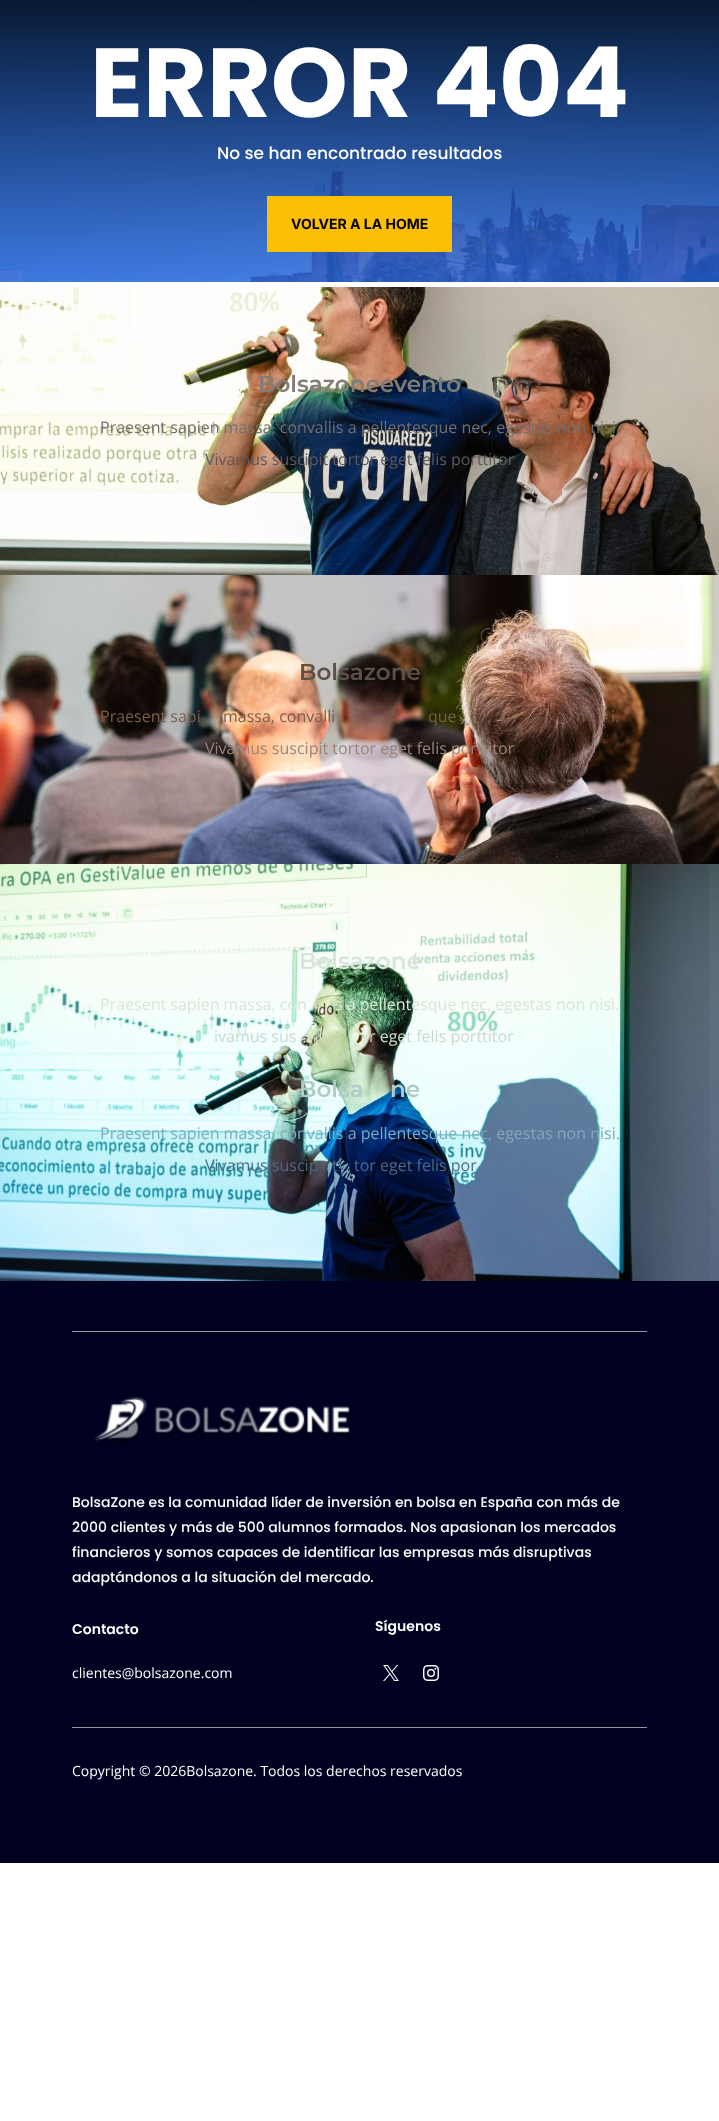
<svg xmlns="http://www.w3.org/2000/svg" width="719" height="2121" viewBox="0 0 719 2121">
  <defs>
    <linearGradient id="g1" gradientUnits="userSpaceOnUse" x1="360" y1="0" x2="360" y2="282"><stop offset="0" stop-color="#081931"/><stop offset="1" stop-color="#185adb" stop-opacity="0.77"/></linearGradient>
  </defs>
  <rect width="100%" height="100%" fill="#ffffff"/>
  <image x="0" y="7" width="719" height="275" href="img1.png"/>
  <rect x="0" y="0" width="719" height="282" fill="url(#g1)"/>
  <text x="90" y="117" font-family="Poppins" font-size="98" font-weight="bold" fill="#ffffff">ERROR 404</text>
  <text x="217" y="159" font-family="Poppins" font-size="17" font-weight="500" fill="#ffffff">No se han encontrado resultados</text>
  <rect x="267" y="196" width="185" height="56" fill="#fcbf04"/>
  <text x="291" y="229" font-family="Inter" font-size="14" font-weight="bold" fill="#000000">VOLVER A LA HOME</text>
  <image x="0" y="287" width="719" height="288" href="img2.png"/>
  <text x="258" y="392" font-family="Montserrat" font-size="23" font-weight="600" fill="#807c79">Bolsazoneevento</text>
  <text x="100" y="433" font-family="Open Sans" font-size="16" fill="#746f6d">Praesent sapien massa, convallis a pellentesque nec, egestas non nisi.</text>
  <text x="205" y="465" font-family="Open Sans" font-size="16" fill="#5e595c">Vivamus suscipit tortor eget felis porttitor</text>
  <image x="0" y="575" width="719" height="289" href="img3.png"/>
  <text x="299" y="680" font-family="Montserrat" font-size="23" font-weight="600" fill="#5d5047">Bolsazone</text>
  <text x="100" y="722" font-family="Open Sans" font-size="16" fill="#7c5e4c">Praesent sapi</text>
  <text x="223" y="722" font-family="Open Sans" font-size="16" fill="#7c5e4c">massa, convalli</text>
  <text x="428" y="722" font-family="Open Sans" font-size="16" fill="#7c5e4c">que</text>
  <text x="576" y="722" font-family="Open Sans" font-size="16" fill="#7c5e4c">n</text>
  <text x="611" y="722" font-family="Open Sans" font-size="16" fill="#7c5e4c">i.</text>
  <text x="487" y="722" font-family="Open Sans" font-size="16" fill="#7c5e4c">,</text>
  <text x="205" y="754" font-family="Open Sans" font-size="16" fill="#9c8478">Vivamus suscipit tortor eget felis porttitor</text>
  <image x="0" y="864" width="719" height="417" href="img4.png"/>
  <text x="299" y="969" font-family="Montserrat" font-size="23" font-weight="600" fill="#d8e5da">Bolsazone</text>
  <text x="100" y="1010" font-family="Open Sans" font-size="16" fill="#d8e5da">Praesent sapien massa, con</text>
  <text x="335" y="1010" font-family="Open Sans" font-size="16" fill="#d8e5da">s a pellentesque nec, egestas non nisi.</text>
  <text x="214" y="1042" font-family="Open Sans" font-size="16" fill="#cdd9cf">ivamus sus</text>
  <text x="369" y="1042" font-family="Open Sans" font-size="16" fill="#cdd9cf">r eget felis porttitor</text>
  <text x="299" y="1097" font-family="Montserrat" font-size="23" font-weight="600" fill="#afccc6">Bolsa</text>
  <text x="390" y="1097" font-family="Montserrat" font-size="23" font-weight="600" fill="#afccc6">ne</text>
  <text x="100" y="1139" font-family="Open Sans" font-size="16" fill="#7faac0">Praesent sapien massa, convallis a pellentesque nec, egestas non nisi.</text>
  <text x="205" y="1171" font-family="Open Sans" font-size="16" fill="#4d6982">Vivamus suscip</text>
  <text x="332" y="1171" font-family="Open Sans" font-size="16" fill="#4d6982">t</text>
  <text x="354" y="1171" font-family="Open Sans" font-size="16" fill="#4d6982">tor eget felis por</text>
  <rect x="0" y="1281" width="719" height="582" fill="#000121"/>
  <rect x="72" y="1331" width="575" height="1" fill="#969696"/>
  <rect x="72" y="1727" width="575" height="1" fill="#969696"/>
  <image x="94" y="1397" width="256" height="47" href="img5.png"/>
  <text x="72" y="1507" font-family="Poppins" font-size="14" font-weight="500" fill="#ffffff">BolsaZone es la comunidad líder de inversión en bolsa en España con más de</text>
  <text x="72" y="1532" font-family="Poppins" font-size="14" font-weight="500" fill="#ffffff">2000 clientes y más de 500 alumnos formados. Nos apasionan los mercados</text>
  <text x="72" y="1557" font-family="Poppins" font-size="14" font-weight="500" fill="#ffffff">financieros y somos capaces de identificar las empresas más disruptivas</text>
  <text x="72" y="1582" font-family="Poppins" font-size="14" font-weight="500" fill="#ffffff">adaptándonos a la situación del mercado.</text>
  <text x="72" y="1634" font-family="Poppins" font-size="14" font-weight="600" fill="#ffffff">Contacto</text>
  <text x="72" y="1678" font-family="Open Sans" font-size="14" fill="#ffffff">clientes@bolsazone.com</text>
  <text x="375" y="1631" font-family="Poppins" font-size="14" font-weight="600" fill="#ffffff">Síguenos</text>
  <image x="383" y="1665" width="16" height="16" href="img6.png"/>
  <image x="423" y="1665" width="16" height="16" href="img7.png"/>
  <text x="72" y="1776" font-family="Open Sans" font-size="14" fill="#ffffff">Copyright © 2026Bolsazone. Todos los derechos reservados</text>
</svg>
